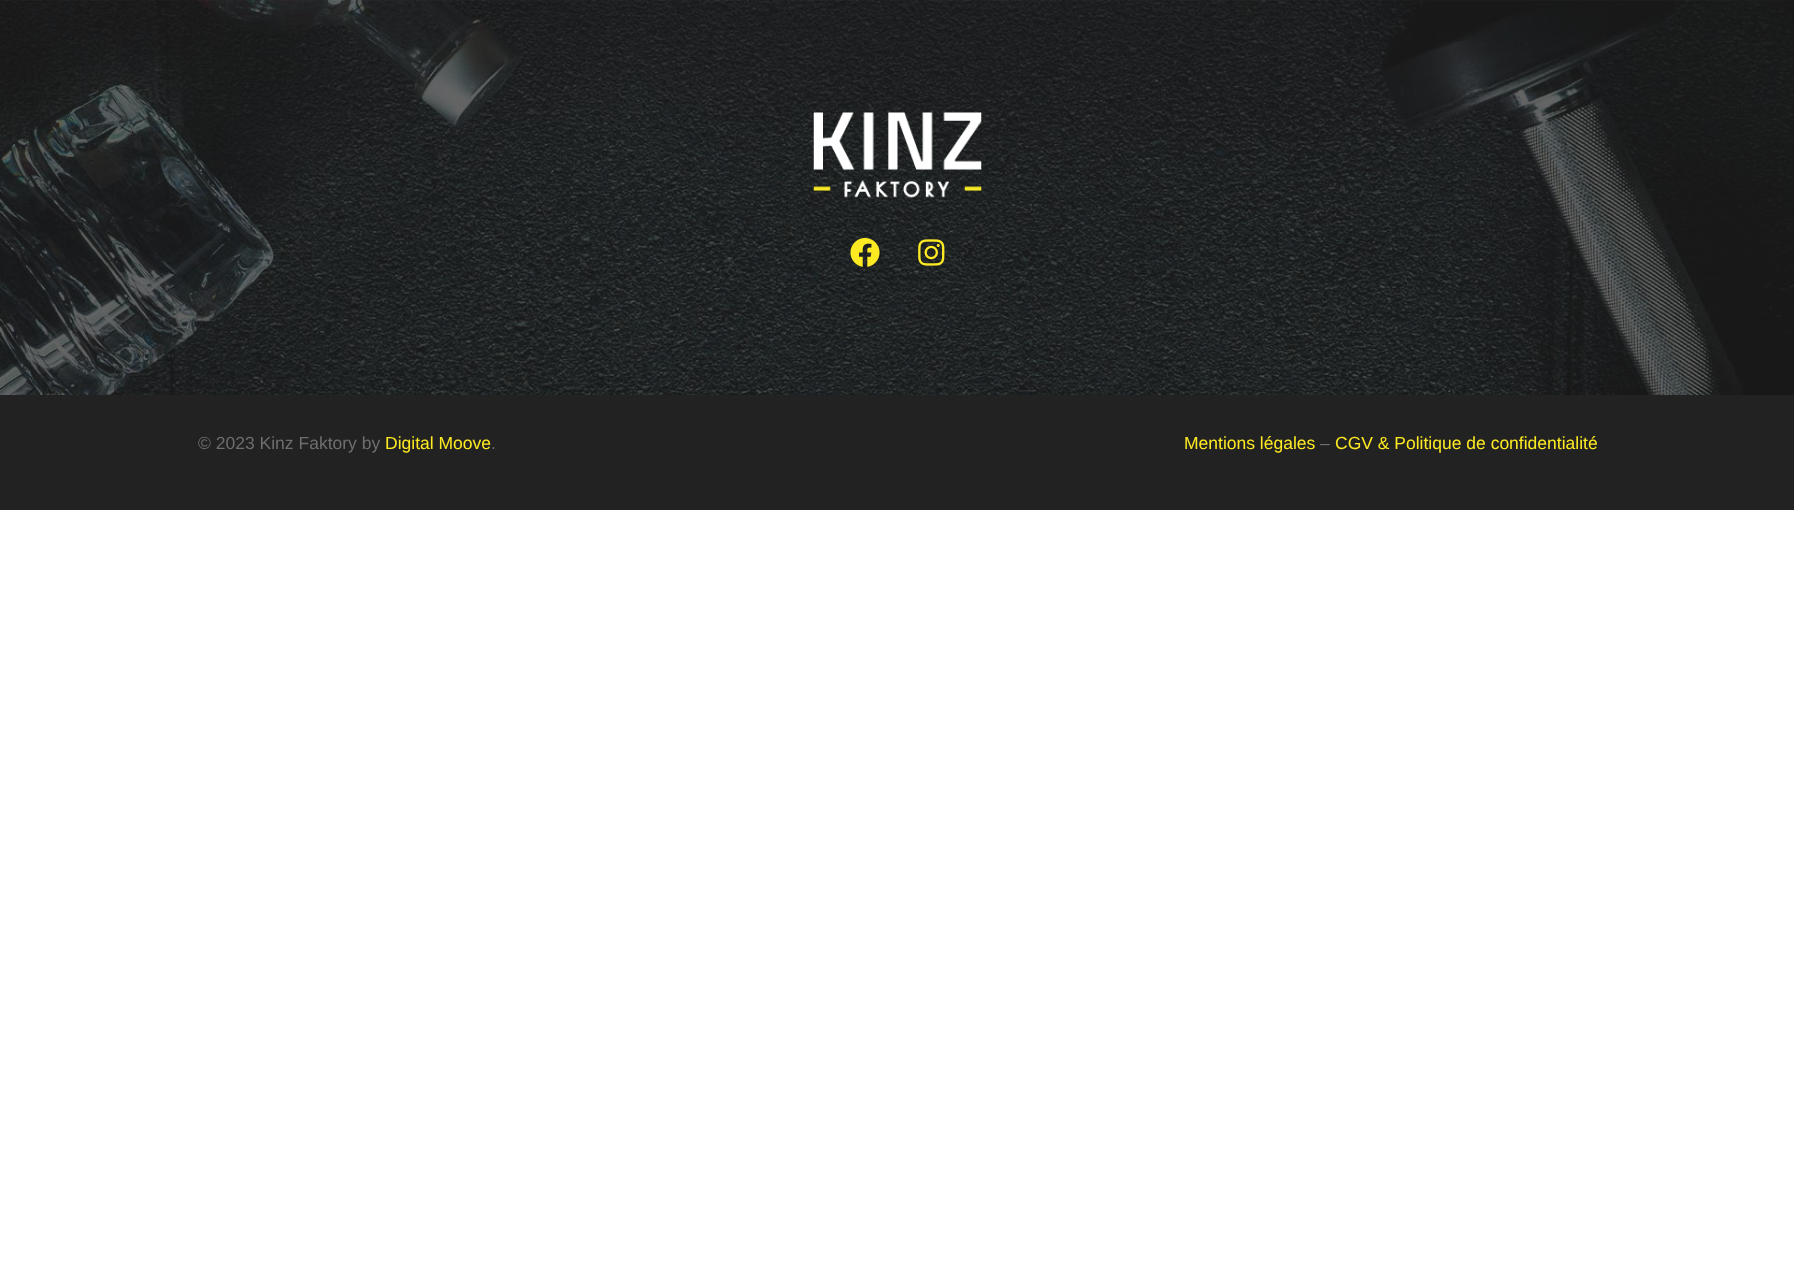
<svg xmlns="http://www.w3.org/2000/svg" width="1794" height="1268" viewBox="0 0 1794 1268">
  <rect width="100%" height="100%" fill="#ffffff"/>
  <image x="0" y="0" width="1794" height="395" href="img1.png"/>
  <image x="813" y="112" width="169" height="86" href="img2.png"/>
  <image x="850" y="238" width="30" height="29" href="img3.png"/>
  <image x="918" y="239" width="27" height="27" href="img4.png"/>
  <rect x="0" y="395" width="1794" height="115" fill="#222222"/>
  <text x="198" y="449" font-family="Liberation Sans" font-size="17.5" fill="#6e6e6e">© 2023 Kinz Faktory by</text>
  <text x="385" y="449" font-family="Liberation Sans" font-size="17.5" fill="#fdea23">Digital Moove</text>
  <text x="491" y="449" font-family="Liberation Sans" font-size="17.5" fill="#6e6e6e">.</text>
  <text x="1184" y="449" font-family="Liberation Sans" font-size="17.5" fill="#fdea23">Mentions légales</text>
  <text x="1320" y="449" font-family="Liberation Sans" font-size="17.5" fill="#6e6e6e">–</text>
  <text x="1335" y="449" font-family="Liberation Sans" font-size="17.5" fill="#fdea23">CGV &amp; Politique de confidentialité</text>
</svg>
